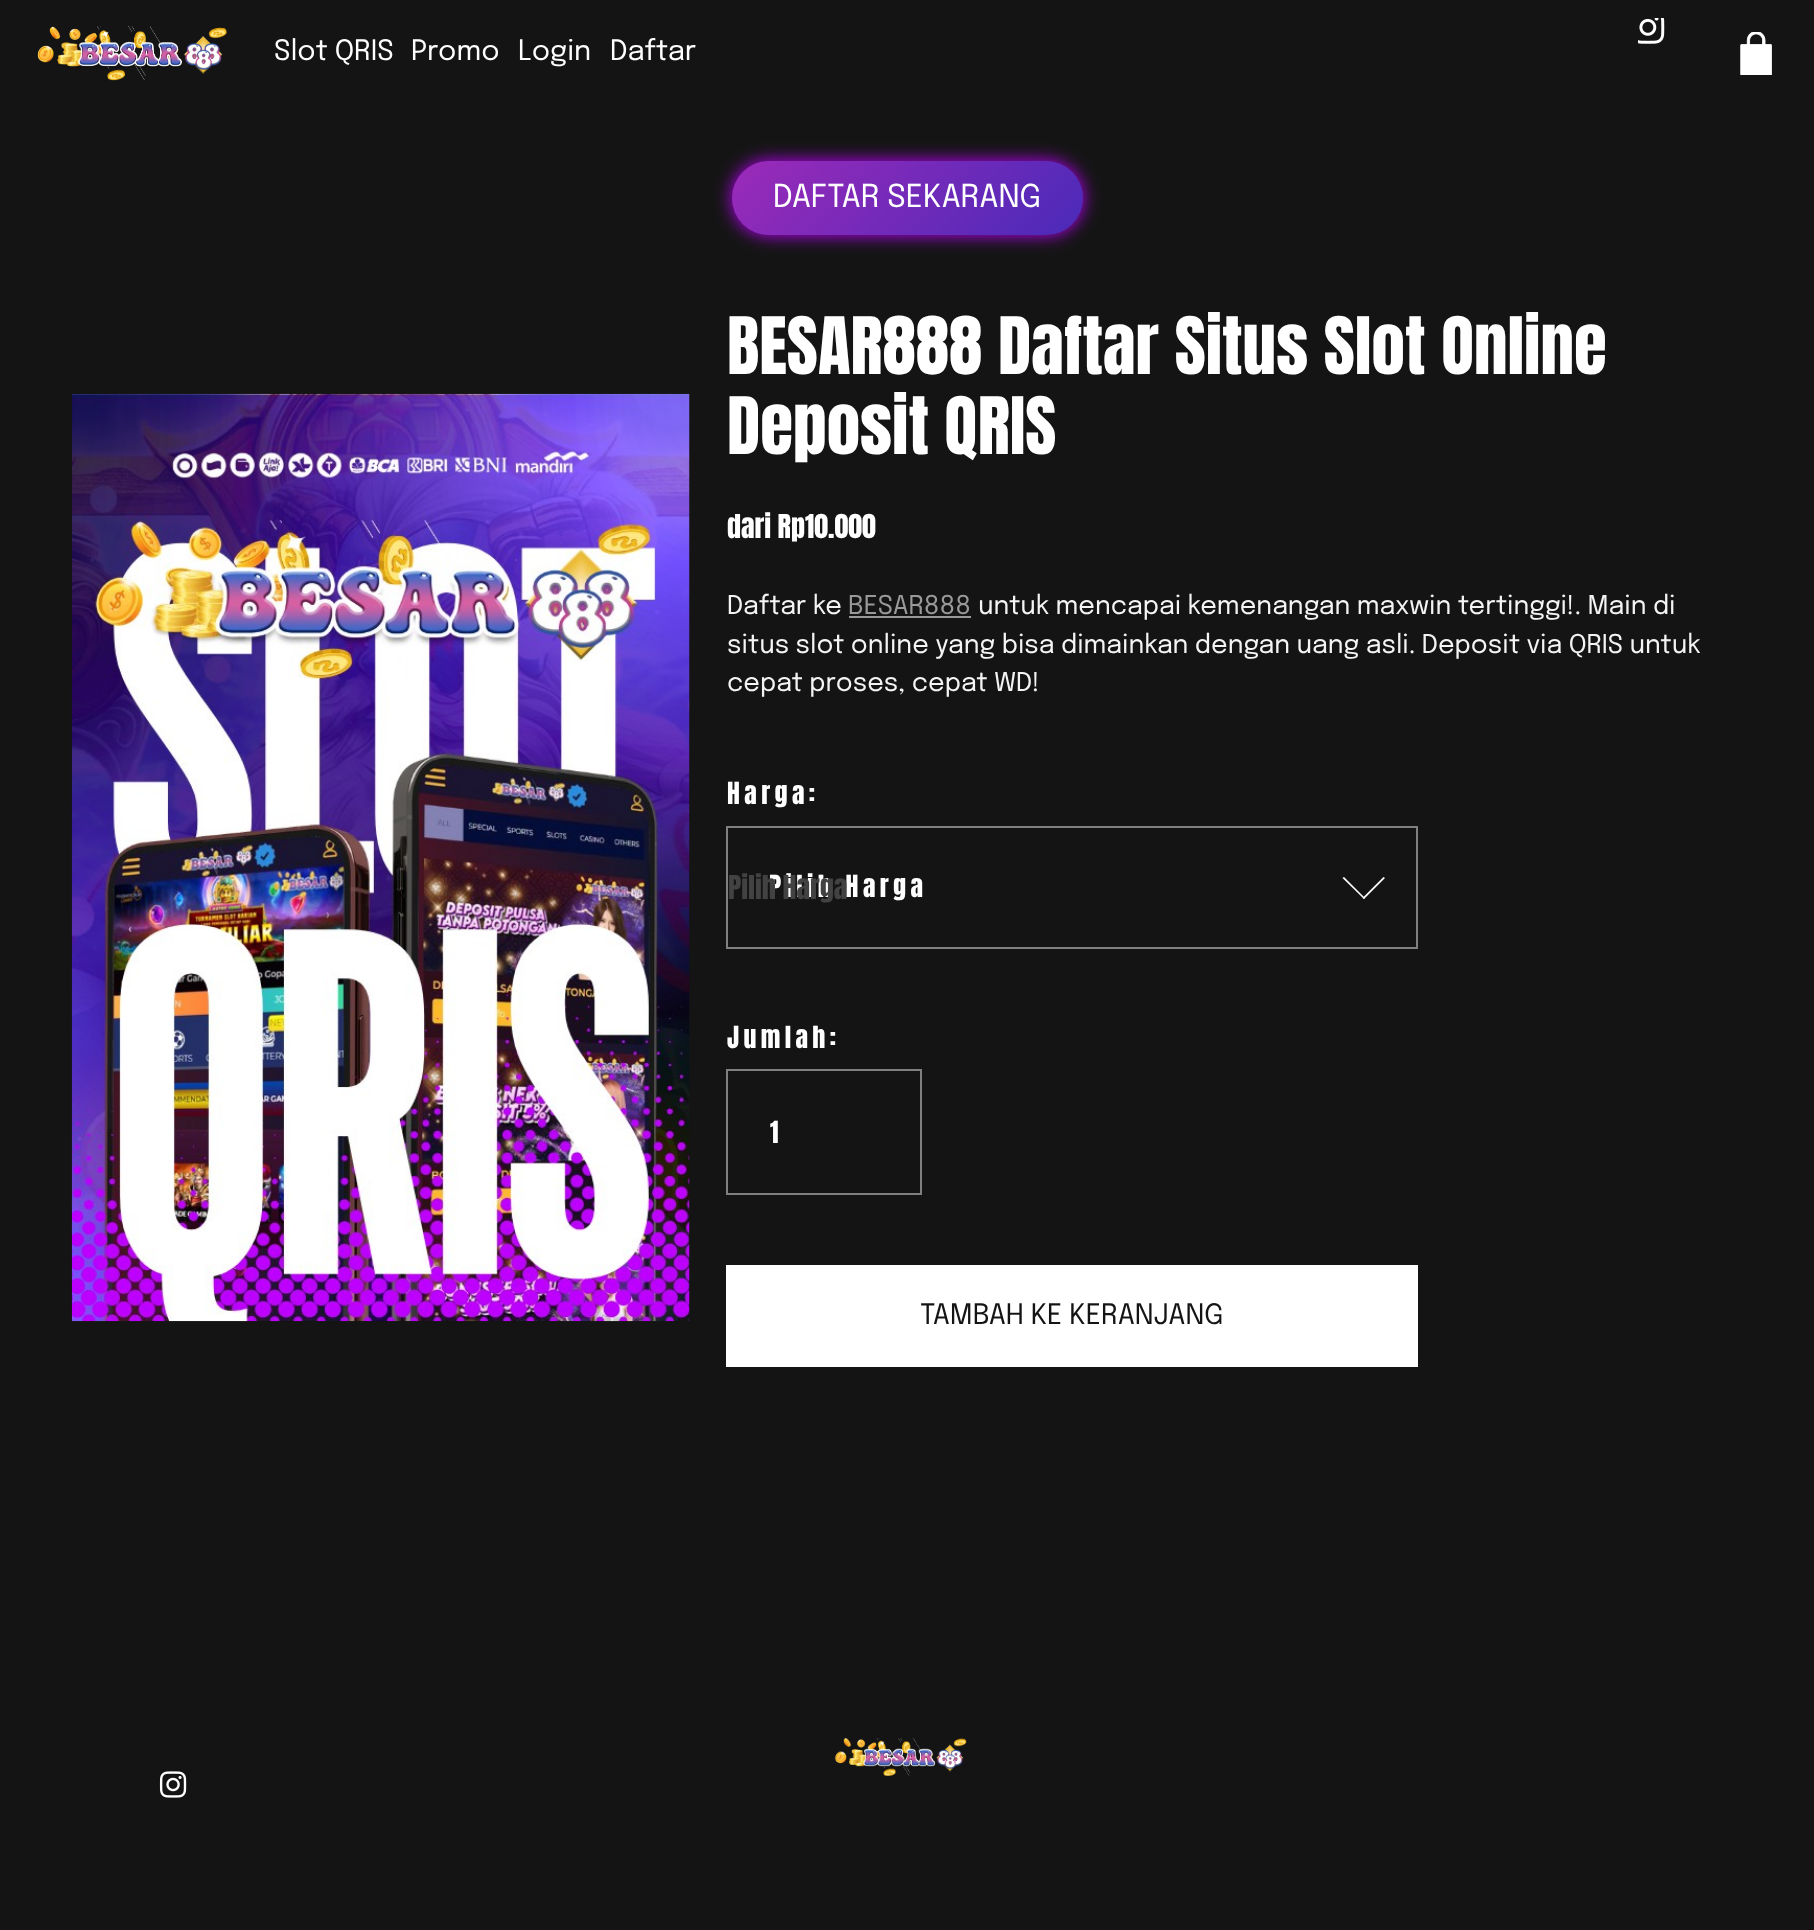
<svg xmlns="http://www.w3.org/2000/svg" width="1814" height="1930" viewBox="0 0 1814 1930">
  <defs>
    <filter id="blur1" x="-50%" y="-200%" width="200%" height="500%"><feGaussianBlur stdDeviation="9"/></filter>
    <linearGradient id="g1" gradientUnits="userSpaceOnUse" x1="801" y1="91" x2="1014" y2="304"><stop offset="0" stop-color="#9c2ab9"/><stop offset="1" stop-color="#4a2ab9"/></linearGradient>
  </defs>
  <rect width="100%" height="100%" fill="#141414"/>
  <image x="37" y="26" width="190" height="55" href="img1.png"/>
  <text x="274" y="60" font-family="Epilogue" font-size="28" fill="#ffffff">Slot QRIS</text>
  <text x="411" y="60" font-family="Epilogue" font-size="28" fill="#ffffff">Promo</text>
  <text x="518" y="60" font-family="Epilogue" font-size="28" fill="#ffffff">Login</text>
  <text x="610" y="60" font-family="Epilogue" font-size="28" fill="#ffffff">Daftar</text>
  <image x="1638" y="18" width="27" height="26" href="img2.png"/>
  <image x="1740" y="32" width="32" height="43" href="img3.png"/>
  <rect x="732" y="161" width="351" height="74" rx="37" fill="#bd00ff" filter="url(#blur1)"/>
  <rect x="732" y="161" width="351" height="74" rx="37" fill="url(#g1)"/>
  <text x="773" y="207" font-family="Epilogue" font-size="31.5" fill="#ffffff">DAFTAR SEKARANG</text>
  <image x="71" y="393" width="619" height="929" href="img4.png"/>
  <text x="727" y="374" font-family="Anton" font-size="67.25" fill="#ffffff">BESAR888 Daftar Situs Slot Online</text>
  <text x="727" y="454" font-family="Anton" font-size="67.25" fill="#ffffff">Deposit QRIS</text>
  <text x="727" y="538" font-family="Anton" font-size="28" fill="#ffffff">dari Rp10.000</text>
  <text x="727" y="614" font-family="Epilogue" font-size="25.8" fill="#f4f4f4">Daftar ke</text>
  <text x="848" y="614" font-family="Epilogue" font-size="25.8" fill="#999999">BESAR888</text>
  <rect x="849" y="616" width="122" height="2" fill="#999999"/>
  <text x="978" y="614" font-family="Epilogue" font-size="25.8" fill="#f4f4f4">untuk mencapai kemenangan maxwin tertinggi!. Main di</text>
  <text x="727" y="653" font-family="Epilogue" font-size="25.8" fill="#f4f4f4">situs slot online yang bisa dimainkan dengan uang asli. Deposit via QRIS untuk</text>
  <text x="727" y="691" font-family="Epilogue" font-size="25.8" fill="#f4f4f4">cepat proses, cepat WD!</text>
  <text x="727" y="804" font-family="Anton" font-size="25.8" letter-spacing="4.4" fill="#ffffff">Harga:</text>
  <rect x="727" y="827" width="690" height="121" fill="none" stroke="#808080" stroke-width="2"/>
  <text x="769" y="897" font-family="Anton" font-size="25.8" letter-spacing="4.4" fill="#ffffff">Pilih Harga</text>
  <text x="728" y="899" font-family="Anton" font-size="28" fill="#424242">Pilih Harga</text>
  <path d="M1383.5 877L1385 878L1364 899L1362.5 898Z" fill="#ffffff"/>
  <path d="M1344 877L1365 898L1364 899L1342.5 878Z" fill="#ffffff"/>
  <text x="727" y="1048" font-family="Anton" font-size="25.8" letter-spacing="4.4" fill="#ffffff">Jumlah:</text>
  <rect x="727" y="1070" width="194" height="124" fill="none" stroke="#808080" stroke-width="2"/>
  <text x="770" y="1143" font-family="Anton" font-size="25.8" fill="#ffffff">1</text>
  <rect x="726" y="1265" width="692" height="102" fill="#ffffff"/>
  <text x="920" y="1324" font-family="Epilogue" font-size="28" fill="#141414">TAMBAH KE KERANJANG</text>
  <image x="834" y="1737" width="133" height="40" href="img5.png"/>
  <image x="159" y="1771" width="28" height="27" href="img6.png"/>
</svg>
